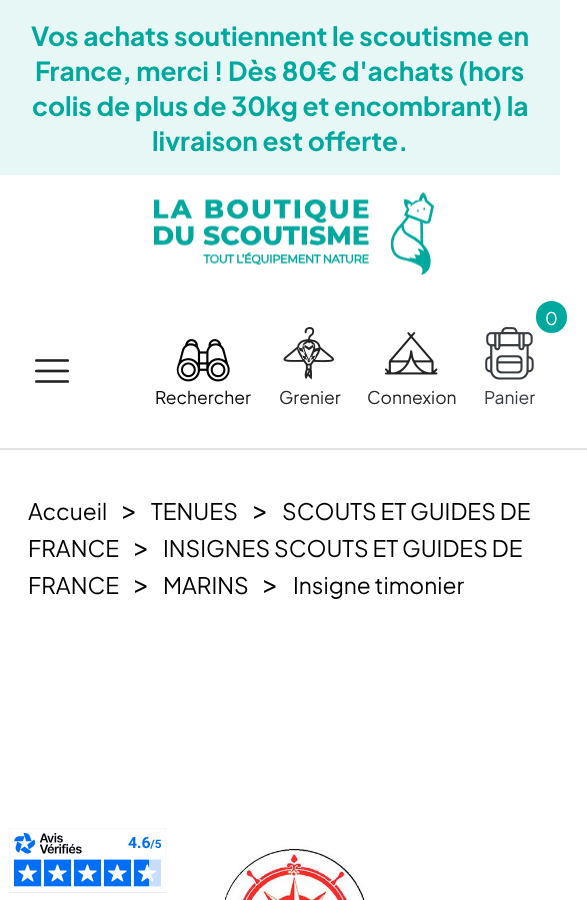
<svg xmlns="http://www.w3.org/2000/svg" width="587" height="900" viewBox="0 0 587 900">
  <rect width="100%" height="100%" fill="#ffffff"/>
  <rect x="0" y="448" width="587" height="2" fill="#e2e2e2"/>
  <rect x="0" y="0" width="560" height="175" fill="#e6f7f6"/>
  <text x="31" y="46" font-family="Plus Jakarta Sans" font-size="26.25" font-weight="bold" fill="#00a89d">Vos achats soutiennent le scoutisme en</text>
  <text x="35" y="81" font-family="Plus Jakarta Sans" font-size="26.25" font-weight="bold" fill="#00a89d">France, merci ! Dès 80€ d'achats (hors</text>
  <text x="32" y="116" font-family="Plus Jakarta Sans" font-size="26.25" font-weight="bold" fill="#00a89d">colis de plus de 30kg et encombrant) la</text>
  <text x="152" y="151" font-family="Plus Jakarta Sans" font-size="26.25" font-weight="bold" fill="#00a89d">livraison est offerte.</text>
  <image x="154" y="192" width="280" height="83" href="img1.png"/>
  <image x="35" y="359" width="35" height="24" href="img2.png"/>
  <image x="176" y="339" width="54" height="43" href="img3.png"/>
  <text x="155" y="404" font-family="Plus Jakarta Sans" font-size="17.5" fill="#000000">Rechercher</text>
  <image x="283" y="327" width="51" height="53" href="img4.png"/>
  <text x="279" y="404" font-family="Plus Jakarta Sans" font-size="17.5" fill="#232323">Grenier</text>
  <image x="385" y="332" width="53" height="43" href="img5.png"/>
  <text x="367" y="404" font-family="Plus Jakarta Sans" font-size="17.5" fill="#232323">Connexion</text>
  <rect x="536" y="301" width="31" height="32" rx="15.5" fill="#00a89d"/>
  <text x="545" y="325" font-family="Plus Jakarta Sans" font-size="17.5" fill="#ffffff">0</text>
  <image x="485" y="327" width="49" height="53" href="img6.png"/>
  <text x="484" y="404" font-family="Plus Jakarta Sans" font-size="17.5" fill="#363a41">Panier</text>
  <text x="28" y="520" font-family="Plus Jakarta Sans" font-size="22.75" fill="#000000">Accueil</text>
  <text x="121" y="520" font-family="Plus Jakarta Sans" font-size="28" fill="#000000">&gt;</text>
  <text x="151" y="520" font-family="Plus Jakarta Sans" font-size="22.75" fill="#000000">TENUES</text>
  <text x="252" y="520" font-family="Plus Jakarta Sans" font-size="28" fill="#000000">&gt;</text>
  <text x="282" y="520" font-family="Plus Jakarta Sans" font-size="22.75" fill="#000000">SCOUTS ET GUIDES DE</text>
  <text x="28" y="557" font-family="Plus Jakarta Sans" font-size="22.75" fill="#000000">FRANCE</text>
  <text x="133" y="557" font-family="Plus Jakarta Sans" font-size="28" fill="#000000">&gt;</text>
  <text x="163" y="557" font-family="Plus Jakarta Sans" font-size="22.75" fill="#000000">INSIGNES SCOUTS ET GUIDES DE</text>
  <text x="28" y="594" font-family="Plus Jakarta Sans" font-size="22.75" fill="#000000">FRANCE</text>
  <text x="133" y="594" font-family="Plus Jakarta Sans" font-size="28" fill="#000000">&gt;</text>
  <text x="163" y="594" font-family="Plus Jakarta Sans" font-size="22.75" fill="#000000">MARINS</text>
  <text x="262" y="594" font-family="Plus Jakarta Sans" font-size="28" fill="#000000">&gt;</text>
  <text x="293" y="594" font-family="Plus Jakarta Sans" font-size="22.75" fill="#000000">Insigne timonier</text>
  <image x="224" y="846" width="141" height="54" href="img7.png"/>
  <image x="9" y="828" width="157" height="65" href="img8.png"/>
</svg>
